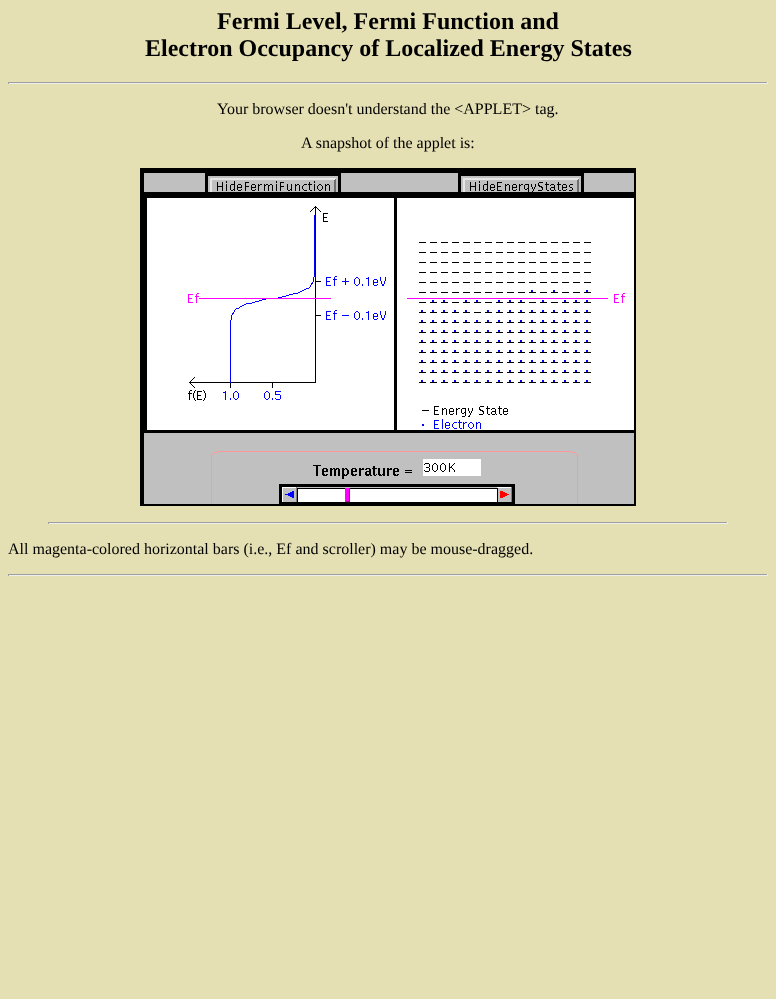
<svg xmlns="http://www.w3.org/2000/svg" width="776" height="999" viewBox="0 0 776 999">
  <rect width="100%" height="100%" fill="#e5e0b3"/>
  <text x="217" y="29" font-family="Liberation Serif" font-size="24" font-weight="bold" fill="#000000">Fermi Level, Fermi Function and</text>
  <text x="145" y="56" font-family="Liberation Serif" font-size="24" font-weight="bold" fill="#000000">Electron Occupancy of Localized Energy States</text>
  <rect x="8" y="82" width="760" height="1" fill="#9f9f9f"/>
  <rect x="767" y="82" width="1" height="2" fill="#eeeeee"/>
  <rect x="8" y="83" width="760" height="1" fill="#eeeeee"/>
  <rect x="8" y="82" width="1" height="2" fill="#9f9f9f"/>
  <text x="217" y="114" font-family="Liberation Serif" font-size="16" fill="#000000">Your browser doesn't understand the &lt;APPLET&gt; tag.</text>
  <text x="301" y="148" font-family="Liberation Serif" font-size="16" fill="#000000">A snapshot of the applet is:</text>
  <image x="140" y="168" width="496" height="338" href="img1.png"/>
  <rect x="48" y="522" width="680" height="1" fill="#9f9f9f"/>
  <rect x="727" y="522" width="1" height="2" fill="#eeeeee"/>
  <rect x="48" y="523" width="680" height="1" fill="#eeeeee"/>
  <rect x="48" y="522" width="1" height="2" fill="#9f9f9f"/>
  <text x="8" y="554" font-family="Liberation Serif" font-size="16" fill="#000000">All magenta-colored horizontal bars (i.e., Ef and scroller) may be mouse-dragged.</text>
  <rect x="8" y="574" width="760" height="1" fill="#9f9f9f"/>
  <rect x="767" y="574" width="1" height="2" fill="#eeeeee"/>
  <rect x="8" y="575" width="760" height="1" fill="#eeeeee"/>
  <rect x="8" y="574" width="1" height="2" fill="#9f9f9f"/>
</svg>
